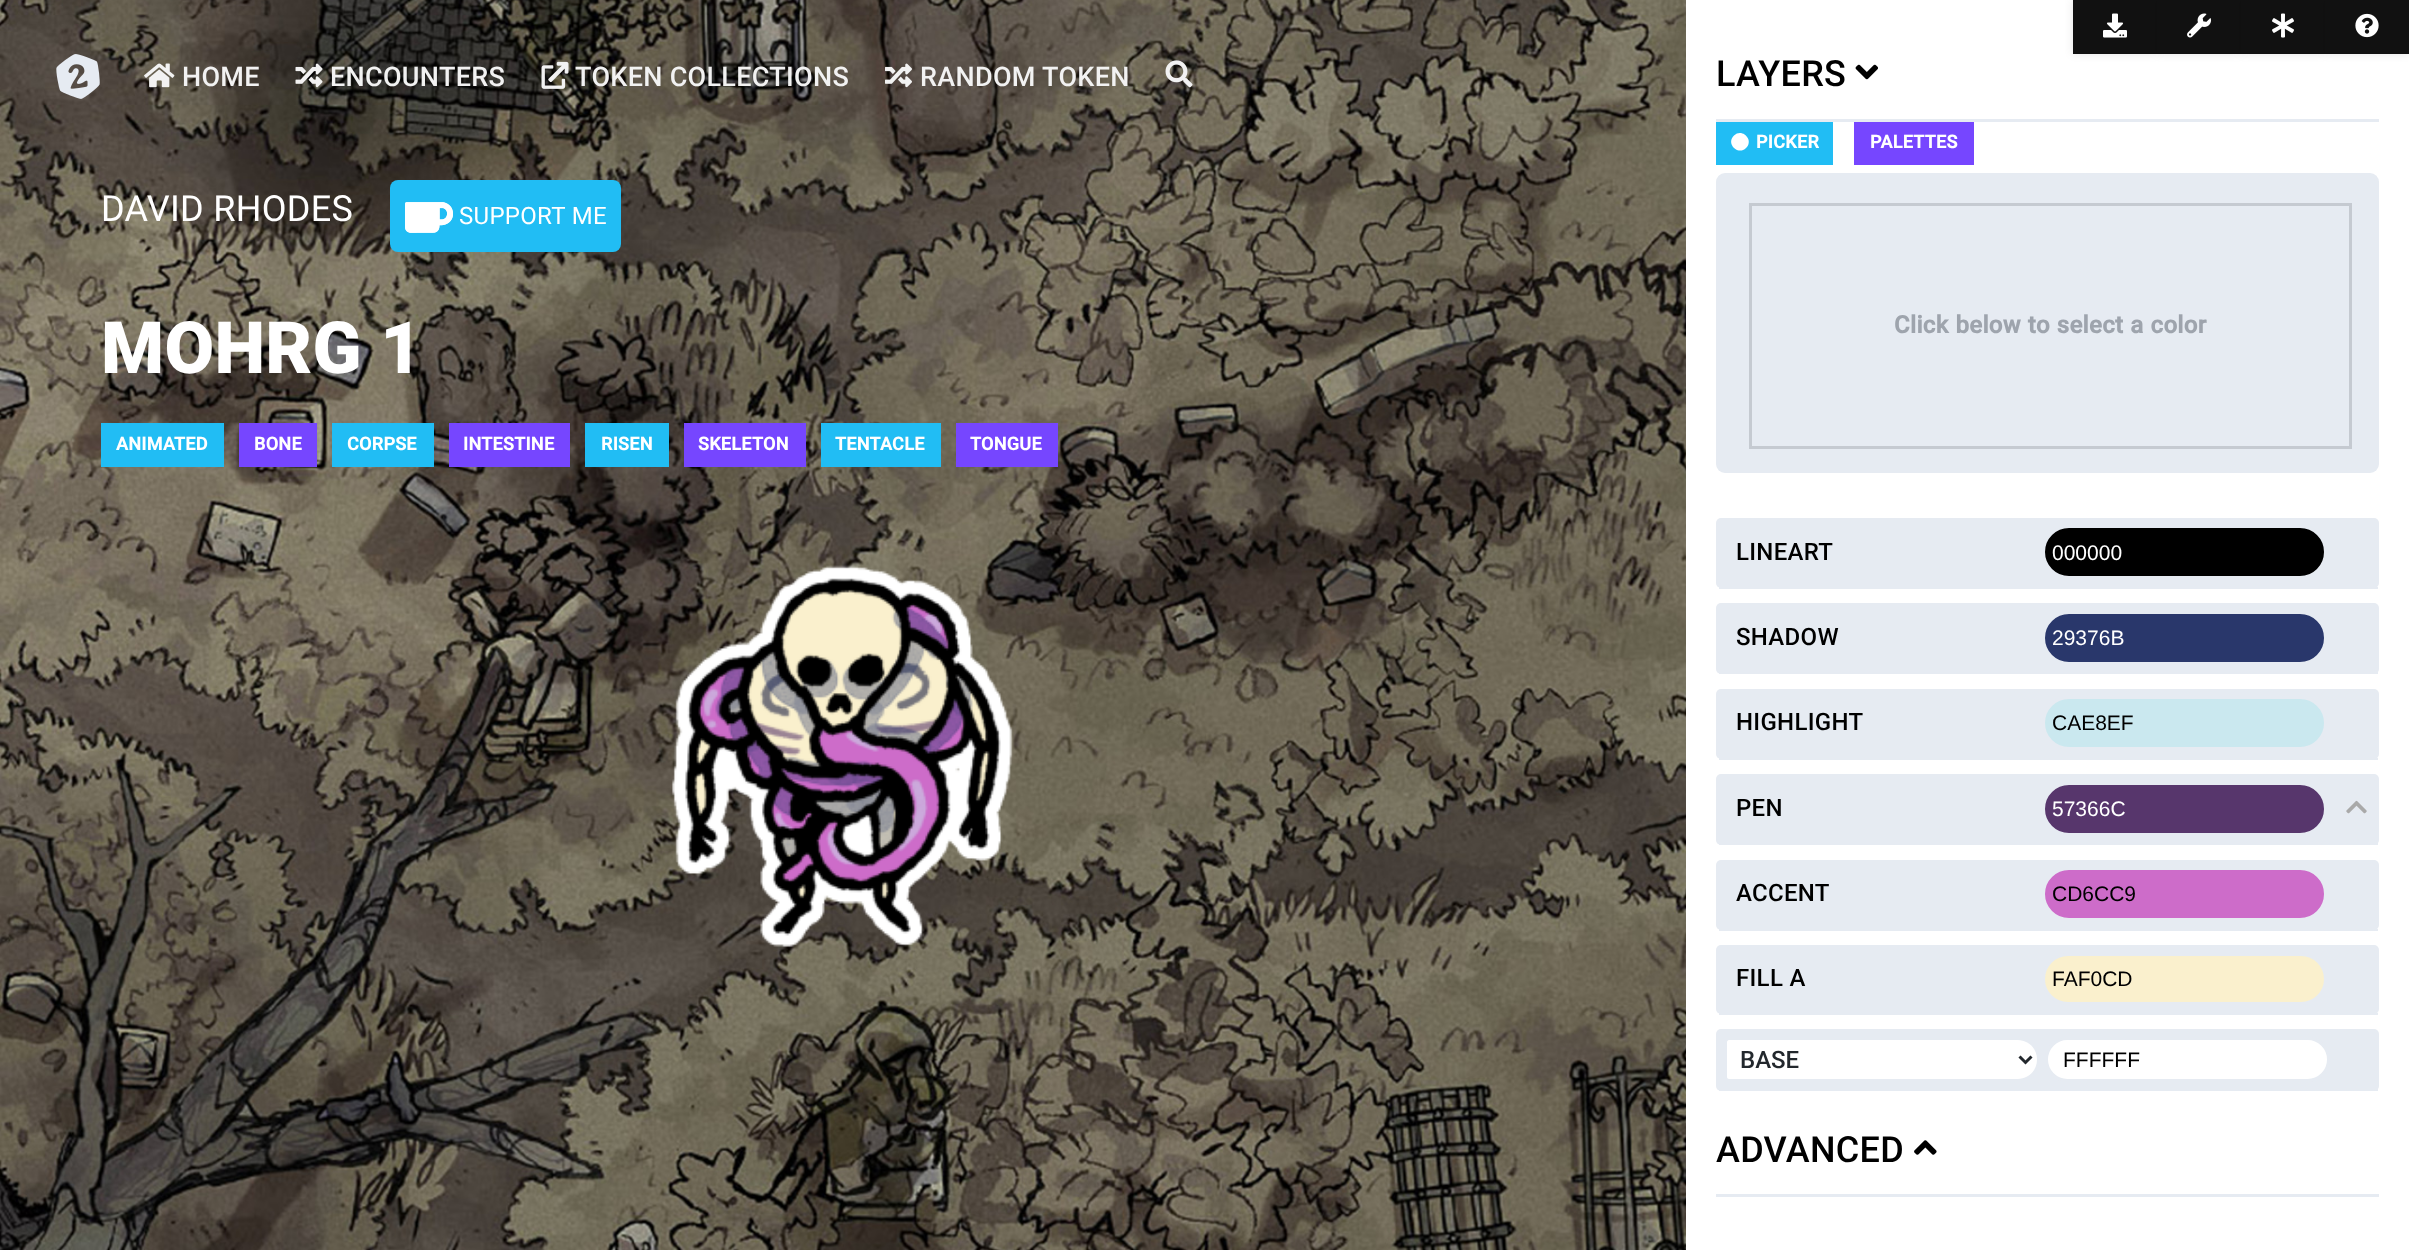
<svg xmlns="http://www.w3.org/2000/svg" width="2409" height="1250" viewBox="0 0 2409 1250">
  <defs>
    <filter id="blur1" x="-50%" y="-200%" width="200%" height="500%"><feGaussianBlur stdDeviation="4"/></filter>
  </defs>
  <rect width="100%" height="100%" fill="#ffffff"/>
  <image x="0" y="0" width="1686" height="1250" href="img14.png"/>
  <image x="56" y="54" width="44" height="45" href="img1.png"/>
  <image x="144" y="63" width="31" height="25" href="img2.png"/>
  <text x="182" y="86" font-family="Roboto" font-size="27" font-weight="500" letter-spacing="0.3" fill="#f2f2f2">HOME</text>
  <image x="295" y="63" width="28" height="25" href="img3.png"/>
  <text x="330" y="86" font-family="Roboto" font-size="27" font-weight="500" letter-spacing="0.3" fill="#f2f2f2">ENCOUNTERS</text>
  <image x="541" y="61" width="28" height="28" href="img4.png"/>
  <text x="575" y="86" font-family="Roboto" font-size="27" font-weight="500" letter-spacing="0.3" fill="#f2f2f2">TOKEN COLLECTIONS</text>
  <image x="885" y="63" width="27" height="25" href="img5.png"/>
  <text x="920" y="86" font-family="Roboto" font-size="27" font-weight="500" letter-spacing="0.3" fill="#f2f2f2">RANDOM TOKEN</text>
  <image x="1165" y="60" width="28" height="28" href="img6.png"/>
  <rect x="2073" y="0" width="84" height="54" fill="#000000" fill-opacity="0.1" filter="url(#blur1)"/>
  <rect x="2073" y="0" width="84" height="54" fill="#111111"/>
  <image x="2103" y="13" width="24" height="25" href="img7.png"/>
  <rect x="2157" y="0" width="84" height="54" fill="#000000" fill-opacity="0.1" filter="url(#blur1)"/>
  <rect x="2157" y="0" width="84" height="54" fill="#111111"/>
  <image x="2187" y="13" width="25" height="25" href="img8.png"/>
  <rect x="2241" y="0" width="84" height="54" fill="#000000" fill-opacity="0.1" filter="url(#blur1)"/>
  <rect x="2241" y="0" width="84" height="54" fill="#111111"/>
  <image x="2272" y="13" width="22" height="25" href="img9.png"/>
  <rect x="2325" y="0" width="84" height="54" fill="#000000" fill-opacity="0.1" filter="url(#blur1)"/>
  <rect x="2325" y="0" width="84" height="54" fill="#111111"/>
  <image x="2355" y="13" width="24" height="25" href="img10.png"/>
  <rect x="1716" y="119" width="663" height="3" fill="#e6ebf2"/>
  <text x="1716" y="86" font-family="Roboto" font-size="36" font-weight="500" letter-spacing="0.3" fill="#000000">LAYERS</text>
  <image x="1855" y="64" width="23" height="16" href="img11.png"/>
  <rect x="1716" y="122" width="117" height="43" fill="#21bdf4"/>
  <path d="M1734 135.5C1742 127.5 1754.5 140 1746 148C1738 156 1725.5 143.5 1734 135.5Z" fill="#ffffff"/>
  <text x="1756" y="148" font-family="Roboto" font-size="18" font-weight="bold" letter-spacing="0.3" fill="#ffffff">PICKER</text>
  <rect x="1854" y="122" width="120" height="43" fill="#7646ff"/>
  <text x="1870" y="148" font-family="Roboto" font-size="18" font-weight="bold" letter-spacing="0.3" fill="#ffffff">PALETTES</text>
  <rect x="1716" y="173" width="663" height="300" rx="9" fill="#e6ebf2"/>
  <rect x="1750.5" y="204.5" width="600" height="243" fill="none" stroke="#c5cad1" stroke-width="3"/>
  <text x="1894" y="333" word-spacing="0.75" font-family="Roboto" font-size="24" font-weight="bold" letter-spacing="0.3" fill="#9ea4ad">Click below to select a color</text>
  <rect x="1716" y="518" width="663" height="70" rx="5" fill="#e6ebf2"/>
  <rect x="1719" y="587" width="659" height="2" fill="#e6ebf2"/>
  <text x="1736" y="560" font-family="Roboto" font-size="24" font-weight="500" letter-spacing="0.3" fill="#000000">LINEART</text>
  <rect x="2043.5" y="526.5" width="282" height="51" rx="25.5" fill="#000000" stroke="#e6ebf2" stroke-width="3"/>
  <text x="2052" y="560" font-family="Liberation Sans" font-size="21" fill="#ffffff">000000</text>
  <rect x="1716" y="603" width="663" height="71" rx="5" fill="#e6ebf2"/>
  <rect x="1719" y="672" width="659" height="2" fill="#e6ebf2"/>
  <text x="1736" y="645" font-family="Roboto" font-size="24" font-weight="500" letter-spacing="0.3" fill="#000000">SHADOW</text>
  <rect x="2043.5" y="612.5" width="282" height="51" rx="25.5" fill="#29376b" stroke="#e6ebf2" stroke-width="3"/>
  <text x="2052" y="645" font-family="Liberation Sans" font-size="21" fill="#ffffff">29376B</text>
  <rect x="1716" y="689" width="663" height="70" rx="5" fill="#e6ebf2"/>
  <rect x="1719" y="758" width="659" height="2" fill="#e6ebf2"/>
  <text x="1736" y="730" font-family="Roboto" font-size="24" font-weight="500" letter-spacing="0.3" fill="#000000">HIGHLIGHT</text>
  <rect x="2043.5" y="697.5" width="282" height="51" rx="25.5" fill="#cae8ef" stroke="#e6ebf2" stroke-width="3"/>
  <text x="2052" y="730" font-family="Liberation Sans" font-size="21" fill="#000000">CAE8EF</text>
  <rect x="1716" y="774" width="663" height="71" rx="5" fill="#e6ebf2"/>
  <rect x="1719" y="843" width="659" height="2" fill="#e6ebf2"/>
  <text x="1736" y="816" font-family="Roboto" font-size="24" font-weight="500" letter-spacing="0.3" fill="#000000">PEN</text>
  <rect x="2043.5" y="783.5" width="282" height="51" rx="25.5" fill="#57366c" stroke="#e6ebf2" stroke-width="3"/>
  <text x="2052" y="816" font-family="Liberation Sans" font-size="21" fill="#ffffff">57366C</text>
  <image x="2346" y="800" width="21" height="14" href="img12.png"/>
  <rect x="1716" y="860" width="663" height="70" rx="5" fill="#e6ebf2"/>
  <rect x="1719" y="929" width="659" height="2" fill="#e6ebf2"/>
  <text x="1736" y="901" font-family="Roboto" font-size="24" font-weight="500" letter-spacing="0.3" fill="#000000">ACCENT</text>
  <rect x="2043.5" y="868.5" width="282" height="51" rx="25.5" fill="#cd6cc9" stroke="#e6ebf2" stroke-width="3"/>
  <text x="2052" y="901" font-family="Liberation Sans" font-size="21" fill="#000000">CD6CC9</text>
  <rect x="1716" y="945" width="663" height="69" rx="5" fill="#e6ebf2"/>
  <rect x="1719" y="1013" width="659" height="2" fill="#e6ebf2"/>
  <text x="1736" y="986" font-family="Roboto" font-size="24" font-weight="500" letter-spacing="0.3" fill="#000000">FILL A</text>
  <rect x="2043.5" y="954.5" width="282" height="49" rx="24.5" fill="#faf0cd" stroke="#e6ebf2" stroke-width="3"/>
  <text x="2052" y="986" font-family="Liberation Sans" font-size="21" fill="#000000">FAF0CD</text>
  <rect x="1716" y="1029" width="663" height="62" rx="5" fill="#e6ebf2"/>
  <rect x="1719" y="1089" width="659" height="2" fill="#e6ebf2"/>
  <path d="M1729 1040H2017.5C2028.5 1040 2037 1048.5 2037 1059.5C2037 1070.5 2028.5 1079 2017.5 1079H1729C1728 1079 1727 1078 1727 1077V1042C1727 1041 1728 1040 1729 1040Z" fill="#ffffff"/>
  <path d="M2019.5 1056.5L2025.5 1062.5L2031.5 1056.5" fill="none" stroke="#23282d" stroke-width="3"/>
  <text x="1740" y="1068" font-family="Roboto" font-size="24" font-weight="500" fill="#23282d">BASE</text>
  <rect x="2046.5" y="1038.5" width="282" height="42" rx="21" fill="#ffffff" stroke="#e6ebf2" stroke-width="3"/>
  <text x="2063" y="1067" font-family="Liberation Sans" font-size="21" fill="#000000">FFFFFF</text>
  <rect x="1716" y="1194" width="663" height="3" fill="#e6ebf2"/>
  <text x="1716" y="1162" font-family="Roboto" font-size="36" font-weight="500" letter-spacing="0.3" fill="#000000">ADVANCED</text>
  <image x="1914" y="1140" width="23" height="15" href="img13.png"/>
  <text x="101" y="221" font-family="Roboto" font-size="36" letter-spacing="0.3" fill="#ffffff">DAVID RHODES</text>
  <rect x="390" y="180" width="231" height="72" rx="8" fill="#21bdf4"/>
  <image x="405" y="202" width="48" height="31" href="img15.png"/>
  <text x="459" y="224" font-family="Roboto" font-size="24" letter-spacing="0.3" fill="#ffffff">SUPPORT ME</text>
  <text x="101" y="373" font-family="Roboto" font-size="72" font-weight="900" letter-spacing="0.3" fill="#ffffff">MOHRG 1</text>
  <rect x="101" y="423" width="123" height="44" fill="#21bdf4"/>
  <text x="116" y="450" font-family="Roboto" font-size="18" font-weight="bold" letter-spacing="0.3" fill="#ffffff">ANIMATED</text>
  <rect x="239" y="423" width="78" height="44" fill="#7646ff"/>
  <text x="254" y="450" font-family="Roboto" font-size="18" font-weight="bold" letter-spacing="0.3" fill="#ffffff">BONE</text>
  <rect x="332" y="423" width="102" height="44" fill="#21bdf4"/>
  <text x="347" y="450" font-family="Roboto" font-size="18" font-weight="bold" letter-spacing="0.3" fill="#ffffff">CORPSE</text>
  <rect x="449" y="423" width="121" height="44" fill="#7646ff"/>
  <text x="463" y="450" font-family="Roboto" font-size="18" font-weight="bold" letter-spacing="0.3" fill="#ffffff">INTESTINE</text>
  <rect x="585" y="423" width="84" height="44" fill="#21bdf4"/>
  <text x="601" y="450" font-family="Roboto" font-size="18" font-weight="bold" letter-spacing="0.3" fill="#ffffff">RISEN</text>
  <rect x="684" y="423" width="122" height="44" fill="#7646ff"/>
  <text x="698" y="450" font-family="Roboto" font-size="18" font-weight="bold" letter-spacing="0.3" fill="#ffffff">SKELETON</text>
  <rect x="821" y="423" width="120" height="44" fill="#21bdf4"/>
  <text x="835" y="450" font-family="Roboto" font-size="18" font-weight="bold" letter-spacing="0.3" fill="#ffffff">TENTACLE</text>
  <rect x="956" y="423" width="102" height="44" fill="#7646ff"/>
  <text x="970" y="450" font-family="Roboto" font-size="18" font-weight="bold" letter-spacing="0.3" fill="#ffffff">TONGUE</text>
  <image x="672" y="565" width="341" height="382" href="img16.png"/>
</svg>
